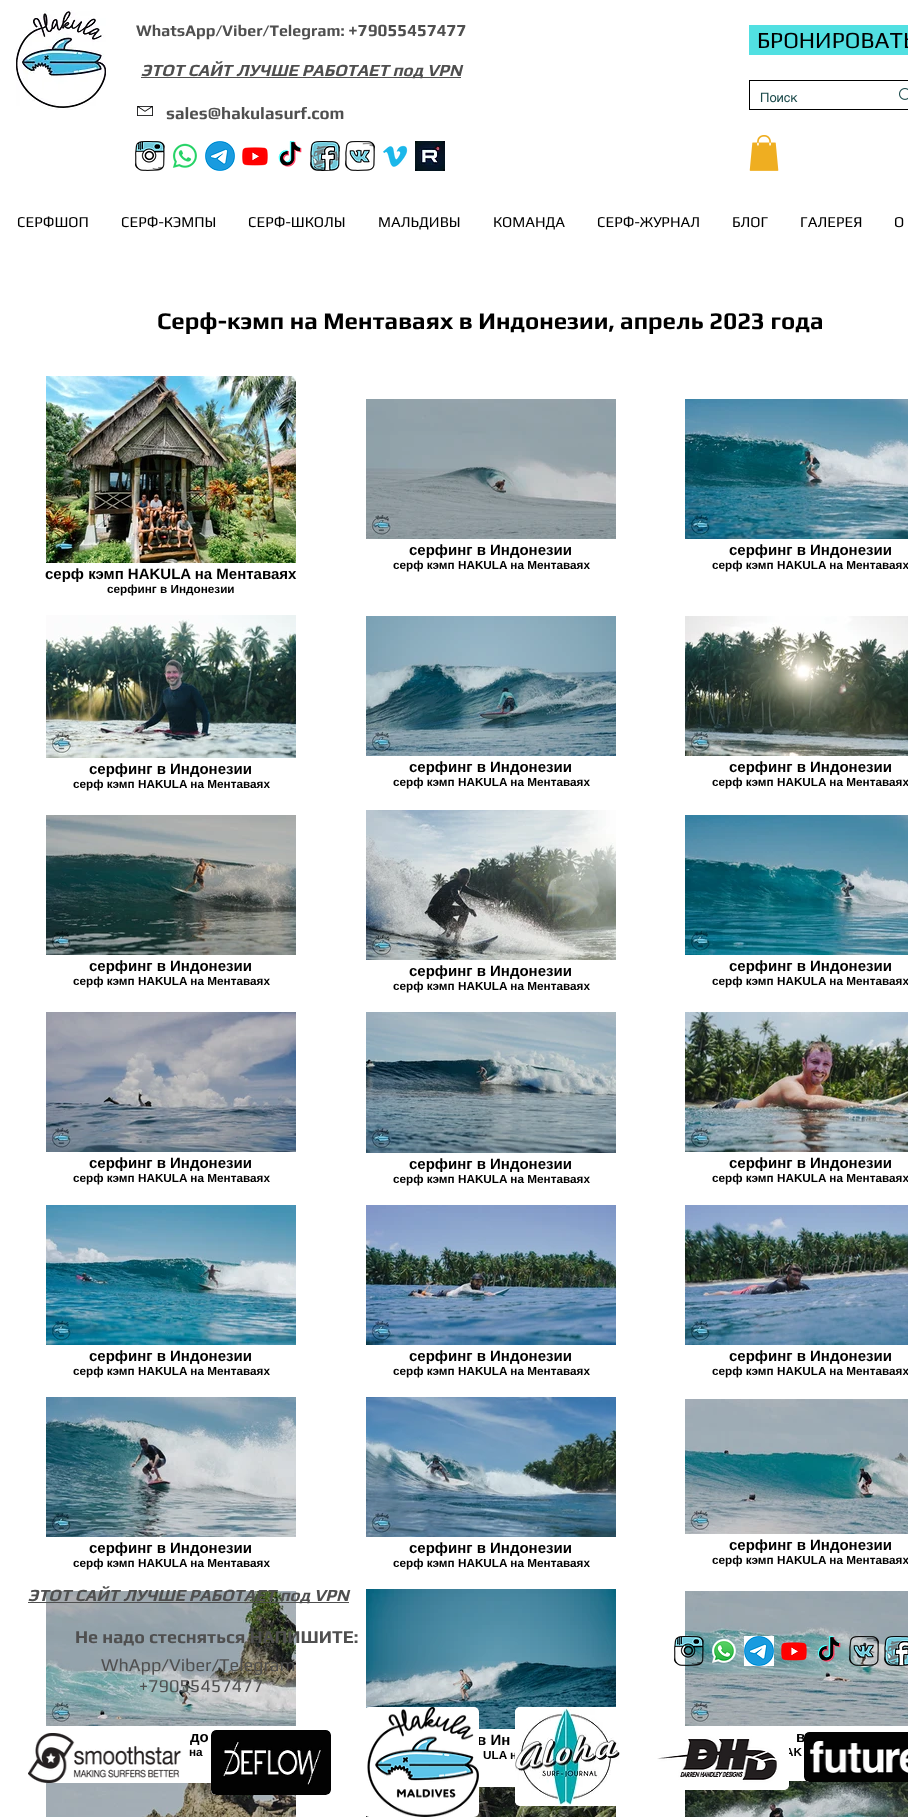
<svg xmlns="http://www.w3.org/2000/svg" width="908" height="1817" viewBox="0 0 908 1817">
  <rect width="100%" height="100%" fill="#ffffff"/>
  <image x="16" y="10" width="90" height="100" href="img1.png"/>
  <text x="136" y="36" font-family="Play" font-size="16" font-weight="bold" fill="#4f4f4f">WhatsApp/Viber/Telegram:</text>
  <text x="348" y="36" font-family="Play" font-size="17" font-weight="bold" fill="#4f4f4f">+79055457477</text>
  <rect x="141" y="77" width="320" height="1" fill="#4f4f4f"/>
  <text x="141" y="76" font-family="Play" font-size="17" font-weight="bold" font-style="italic" fill="#4f4f4f">ЭТОТ САЙТ ЛУЧШЕ РАБОТАЕТ под VPN</text>
  <rect x="749" y="25" width="159" height="30" fill="#51e0e2"/>
  <text x="757" y="48" font-family="Play" font-size="23" fill="#000000">БРОНИРОВАТЬ</text>
  <rect x="749.5" y="80.5" width="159" height="29" fill="none" stroke="#000000"/>
  <text x="760" y="102" font-family="helvetica" font-size="13" fill="#1b4a4b">Поиск</text>
  <image x="899" y="88" width="9" height="12" href="img2.png"/>
  <image x="137" y="106" width="16" height="10" href="img3.png"/>
  <text x="166" y="119" font-family="Play" font-size="17" font-weight="bold" fill="#4f4f4f">sales@hakulasurf.com</text>
  <image x="135" y="141" width="30" height="30" href="img4.png"/>
  <image x="172" y="143" width="25" height="25" href="img5.png"/>
  <image x="205" y="141" width="30" height="30" href="img6.png"/>
  <image x="242" y="147" width="26" height="19" href="img7.png"/>
  <image x="278" y="141" width="24" height="26" href="img8.png"/>
  <image x="310" y="141" width="30" height="30" href="img9.png"/>
  <image x="345" y="141" width="30" height="30" href="img10.png"/>
  <image x="383" y="145" width="25" height="22" href="img11.png"/>
  <image x="415" y="141" width="30" height="30" href="img12.png"/>
  <image x="749" y="135" width="30" height="36" href="img13.png"/>
  <text x="17" y="227" font-family="Play" font-size="15" fill="#000000">СЕРФШОП</text>
  <text x="121" y="227" font-family="Play" font-size="15" fill="#000000">СЕРФ-КЭМПЫ</text>
  <text x="248" y="227" font-family="Play" font-size="15" fill="#000000">СЕРФ-ШКОЛЫ</text>
  <text x="378" y="227" font-family="Play" font-size="15" fill="#000000">МАЛЬДИВЫ</text>
  <text x="493" y="227" font-family="Play" font-size="15" fill="#000000">КОМАНДА</text>
  <text x="597" y="227" font-family="Play" font-size="15" fill="#000000">СЕРФ-ЖУРНАЛ</text>
  <text x="732" y="227" font-family="Play" font-size="15" fill="#000000">БЛОГ</text>
  <text x="800" y="227" font-family="Play" font-size="15" fill="#000000">ГАЛЕРЕЯ</text>
  <text x="894" y="227" font-family="Play" font-size="15" fill="#000000">О</text>
  <text x="157" y="329" font-family="Play" font-size="24" font-weight="bold" fill="#000000">Серф-кэмп на Ментаваях в Индонезии, апрель 2023 года</text>
  <image x="366" y="399" width="250" height="140" href="img14.png"/>
  <text x="409" y="555" font-family="Liberation Sans" font-size="15" font-weight="bold" fill="#000000">серфинг в Индонезии</text>
  <text x="393" y="569" font-family="Liberation Sans" font-size="11.75" font-weight="bold" fill="#000000">серф кэмп HAKULA на Ментаваях</text>
  <image x="685" y="399" width="223" height="140" href="img15.png"/>
  <text x="729" y="555" font-family="Liberation Sans" font-size="15" font-weight="bold" fill="#000000">серфинг в Индонезии</text>
  <text x="712" y="569" font-family="Liberation Sans" font-size="11.75" font-weight="bold" fill="#000000">серф кэмп HAKULA на Ментаваях</text>
  <image x="46" y="376" width="250" height="187" href="img16.png"/>
  <text x="45" y="579" font-family="Liberation Sans" font-size="15" font-weight="bold" fill="#000000">серф кэмп HAKULA на Ментаваях</text>
  <text x="107" y="593" font-family="Liberation Sans" font-size="11.75" font-weight="bold" fill="#000000">серфинг в Индонезии</text>
  <image x="46" y="615" width="250" height="143" href="img17.png"/>
  <text x="89" y="774" font-family="Liberation Sans" font-size="15" font-weight="bold" fill="#000000">серфинг в Индонезии</text>
  <text x="73" y="788" font-family="Liberation Sans" font-size="11.75" font-weight="bold" fill="#000000">серф кэмп HAKULA на Ментаваях</text>
  <image x="366" y="616" width="250" height="140" href="img18.png"/>
  <text x="409" y="772" font-family="Liberation Sans" font-size="15" font-weight="bold" fill="#000000">серфинг в Индонезии</text>
  <text x="393" y="786" font-family="Liberation Sans" font-size="11.75" font-weight="bold" fill="#000000">серф кэмп HAKULA на Ментаваях</text>
  <image x="685" y="616" width="223" height="140" href="img19.png"/>
  <text x="729" y="772" font-family="Liberation Sans" font-size="15" font-weight="bold" fill="#000000">серфинг в Индонезии</text>
  <text x="712" y="786" font-family="Liberation Sans" font-size="11.75" font-weight="bold" fill="#000000">серф кэмп HAKULA на Ментаваях</text>
  <image x="46" y="815" width="250" height="140" href="img20.png"/>
  <text x="89" y="971" font-family="Liberation Sans" font-size="15" font-weight="bold" fill="#000000">серфинг в Индонезии</text>
  <text x="73" y="985" font-family="Liberation Sans" font-size="11.75" font-weight="bold" fill="#000000">серф кэмп HAKULA на Ментаваях</text>
  <image x="366" y="810" width="250" height="150" href="img21.png"/>
  <text x="409" y="976" font-family="Liberation Sans" font-size="15" font-weight="bold" fill="#000000">серфинг в Индонезии</text>
  <text x="393" y="990" font-family="Liberation Sans" font-size="11.75" font-weight="bold" fill="#000000">серф кэмп HAKULA на Ментаваях</text>
  <image x="685" y="815" width="223" height="140" href="img22.png"/>
  <text x="729" y="971" font-family="Liberation Sans" font-size="15" font-weight="bold" fill="#000000">серфинг в Индонезии</text>
  <text x="712" y="985" font-family="Liberation Sans" font-size="11.75" font-weight="bold" fill="#000000">серф кэмп HAKULA на Ментаваях</text>
  <image x="46" y="1012" width="250" height="140" href="img23.png"/>
  <text x="89" y="1168" font-family="Liberation Sans" font-size="15" font-weight="bold" fill="#000000">серфинг в Индонезии</text>
  <text x="73" y="1182" font-family="Liberation Sans" font-size="11.75" font-weight="bold" fill="#000000">серф кэмп HAKULA на Ментаваях</text>
  <image x="366" y="1012" width="250" height="141" href="img24.png"/>
  <text x="409" y="1169" font-family="Liberation Sans" font-size="15" font-weight="bold" fill="#000000">серфинг в Индонезии</text>
  <text x="393" y="1183" font-family="Liberation Sans" font-size="11.75" font-weight="bold" fill="#000000">серф кэмп HAKULA на Ментаваях</text>
  <image x="685" y="1012" width="223" height="140" href="img25.png"/>
  <text x="729" y="1168" font-family="Liberation Sans" font-size="15" font-weight="bold" fill="#000000">серфинг в Индонезии</text>
  <text x="712" y="1182" font-family="Liberation Sans" font-size="11.75" font-weight="bold" fill="#000000">серф кэмп HAKULA на Ментаваях</text>
  <image x="46" y="1205" width="250" height="140" href="img26.png"/>
  <text x="89" y="1361" font-family="Liberation Sans" font-size="15" font-weight="bold" fill="#000000">серфинг в Индонезии</text>
  <text x="73" y="1375" font-family="Liberation Sans" font-size="11.75" font-weight="bold" fill="#000000">серф кэмп HAKULA на Ментаваях</text>
  <image x="366" y="1205" width="250" height="140" href="img27.png"/>
  <text x="409" y="1361" font-family="Liberation Sans" font-size="15" font-weight="bold" fill="#000000">серфинг в Индонезии</text>
  <text x="393" y="1375" font-family="Liberation Sans" font-size="11.75" font-weight="bold" fill="#000000">серф кэмп HAKULA на Ментаваях</text>
  <image x="685" y="1205" width="223" height="140" href="img28.png"/>
  <text x="729" y="1361" font-family="Liberation Sans" font-size="15" font-weight="bold" fill="#000000">серфинг в Индонезии</text>
  <text x="712" y="1375" font-family="Liberation Sans" font-size="11.75" font-weight="bold" fill="#000000">серф кэмп HAKULA на Ментаваях</text>
  <image x="46" y="1397" width="250" height="140" href="img29.png"/>
  <text x="89" y="1553" font-family="Liberation Sans" font-size="15" font-weight="bold" fill="#000000">серфинг в Индонезии</text>
  <text x="73" y="1567" font-family="Liberation Sans" font-size="11.75" font-weight="bold" fill="#000000">серф кэмп HAKULA на Ментаваях</text>
  <image x="366" y="1397" width="250" height="140" href="img30.png"/>
  <text x="409" y="1553" font-family="Liberation Sans" font-size="15" font-weight="bold" fill="#000000">серфинг в Индонезии</text>
  <text x="393" y="1567" font-family="Liberation Sans" font-size="11.75" font-weight="bold" fill="#000000">серф кэмп HAKULA на Ментаваях</text>
  <image x="685" y="1399" width="223" height="135" href="img31.png"/>
  <text x="729" y="1550" font-family="Liberation Sans" font-size="15" font-weight="bold" fill="#000000">серфинг в Индонезии</text>
  <text x="712" y="1564" font-family="Liberation Sans" font-size="11.75" font-weight="bold" fill="#000000">серф кэмп HAKULA на Ментаваях</text>
  <image x="46" y="1591" width="250" height="135" href="img32.png"/>
  <text x="190" y="1742" font-family="Liberation Sans" font-size="15" font-weight="bold" fill="#000000">до</text>
  <text x="189" y="1756" font-family="Liberation Sans" font-size="11.75" font-weight="bold" fill="#000000">на</text>
  <image x="366" y="1589" width="250" height="140" href="img33.png"/>
  <text x="477" y="1745" font-family="Liberation Sans" font-size="15" font-weight="bold" fill="#000000">в Ин</text>
  <text x="483" y="1759" font-family="Liberation Sans" font-size="11.75" font-weight="bold" fill="#000000">ULA н</text>
  <image x="685" y="1591" width="223" height="135" href="img34.png"/>
  <text x="796" y="1742" font-family="Liberation Sans" font-size="15" font-weight="bold" fill="#000000">в</text>
  <text x="785" y="1756" font-family="Liberation Sans" font-size="11.75" font-weight="bold" fill="#000000">AK</text>
  <image x="46" y="1783" width="250" height="34" href="img35.png"/>
  <image x="366" y="1787" width="250" height="30" href="img36.png"/>
  <image x="685" y="1781" width="223" height="36" href="img37.png"/>
  <rect x="28" y="1602" width="321" height="1" fill="#4f4f4f"/>
  <text x="28" y="1601" font-family="Play" font-size="17" font-weight="bold" font-style="italic" fill="#4f4f4f">ЭТОТ САЙТ ЛУЧШЕ РАБОТАЕТ под VPN</text>
  <text x="75" y="1643" font-family="Play" font-size="18" font-weight="bold" fill="#4f4f4f">Не надо стесняться НАПИШИТЕ:</text>
  <image x="674" y="1636" width="30" height="30" href="img38.png"/>
  <image x="711" y="1638" width="25" height="25" href="img39.png"/>
  <image x="744" y="1636" width="30" height="30" href="img6.png"/>
  <image x="781" y="1642" width="26" height="19" href="img40.png"/>
  <image x="817" y="1636" width="24" height="26" href="img41.png"/>
  <image x="849" y="1636" width="30" height="30" href="img42.png"/>
  <image x="884" y="1636" width="24" height="30" href="img43.png"/>
  <text x="101" y="1671" font-family="Play" font-size="18" fill="#4f4f4f">WhApp/Viber/Telegram</text>
  <text x="139" y="1692" font-family="Play" font-size="18" fill="#4f4f4f">+79055457477</text>
  <image x="28" y="1733" width="154" height="50" href="img44.png"/>
  <rect x="211" y="1730" width="120" height="65" rx="5" fill="#ffffff"/>
  <image x="211" y="1730" width="120" height="65" href="img45.png"/>
  <rect x="364" y="1707" width="115" height="110" rx="5" fill="#ffffff"/>
  <image x="367" y="1707" width="112" height="110" href="img46.png"/>
  <rect x="515" y="1707" width="105" height="99" rx="5" fill="#ffffff"/>
  <image x="515" y="1707" width="105" height="99" href="img47.png"/>
  <rect x="649" y="1730" width="140" height="60" rx="5" fill="#ffffff"/>
  <image x="657" y="1734" width="132" height="56" href="img48.png"/>
  <rect x="804" y="1732" width="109" height="50" rx="5" fill="#ffffff"/>
  <image x="804" y="1732" width="104" height="50" href="img49.png"/>
</svg>
